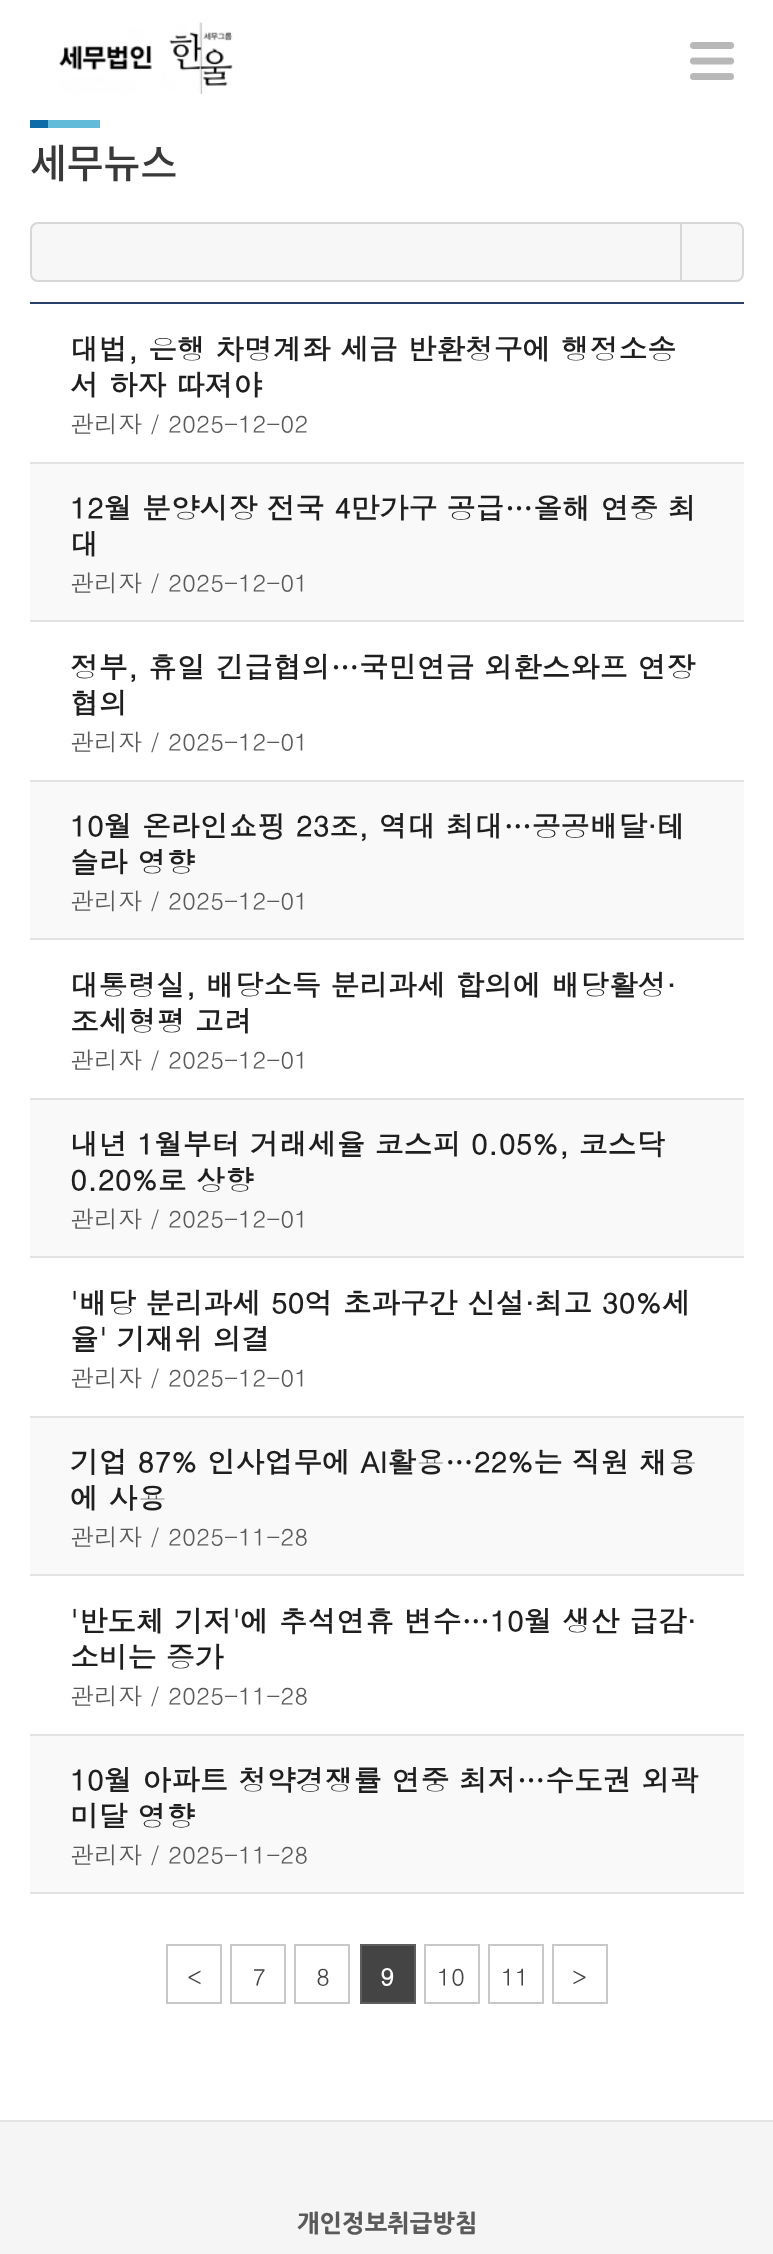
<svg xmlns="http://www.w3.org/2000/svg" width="773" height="2254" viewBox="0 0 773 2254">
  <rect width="100%" height="100%" fill="#ffffff"/>
  <image x="59" y="22" width="174" height="72" href="img1.png"/>
  <image x="690" y="42" width="44" height="38" href="img2.png"/>
  <rect x="30" y="120" width="18" height="8" fill="#0d6ba7"/>
  <rect x="48" y="120" width="52" height="8" fill="#62bbd9"/>
  <text x="30" y="178" font-family="Noto Sans KR" font-size="40" font-weight="500" fill="#393939">세무뉴스</text>
  <rect x="31" y="223" width="712" height="58" rx="7" fill="#f7f7f7" stroke="#d7d7d7" stroke-width="2"/>
  <rect x="680" y="224" width="2" height="56" fill="#d7d7d7"/>
  <rect x="30" y="302" width="714" height="2" fill="#283e6c"/>
  <rect x="30" y="462" width="714" height="2" fill="#e3e3e3"/>
  <text x="70" y="360" font-family="Dotum" font-size="28.8" font-weight="bold" fill="#1f1f1f">대법, 은행 차명계좌 세금 반환청구에 행정소송</text>
  <text x="70" y="396" font-family="Dotum" font-size="28.8" font-weight="bold" fill="#1f1f1f">서 하자 따져야</text>
  <text x="70" y="433" font-family="Dotum" font-size="24" fill="#5a5a5a">관리자 / 2025-12-02</text>
  <rect x="30" y="464" width="714" height="156" fill="#f9f9f9"/>
  <rect x="30" y="620" width="714" height="2" fill="#e3e3e3"/>
  <text x="70" y="519" font-family="Dotum" font-size="28.8" font-weight="bold" fill="#1f1f1f">12월 분양시장 전국 4만가구 공급…올해 연중 최</text>
  <text x="70" y="555" font-family="Dotum" font-size="28.8" font-weight="bold" fill="#1f1f1f">대</text>
  <text x="70" y="592" font-family="Dotum" font-size="24" fill="#5a5a5a">관리자 / 2025-12-01</text>
  <rect x="30" y="780" width="714" height="2" fill="#e3e3e3"/>
  <text x="70" y="678" font-family="Dotum" font-size="28.8" font-weight="bold" fill="#1f1f1f">정부, 휴일 긴급협의…국민연금 외환스와프 연장</text>
  <text x="70" y="714" font-family="Dotum" font-size="28.8" font-weight="bold" fill="#1f1f1f">협의</text>
  <text x="70" y="751" font-family="Dotum" font-size="24" fill="#5a5a5a">관리자 / 2025-12-01</text>
  <rect x="30" y="782" width="714" height="156" fill="#f9f9f9"/>
  <rect x="30" y="938" width="714" height="2" fill="#e3e3e3"/>
  <text x="70" y="837" font-family="Dotum" font-size="28.8" font-weight="bold" fill="#1f1f1f">10월 온라인쇼핑 23조, 역대 최대…공공배달·테</text>
  <text x="70" y="873" font-family="Dotum" font-size="28.8" font-weight="bold" fill="#1f1f1f">슬라 영향</text>
  <text x="70" y="910" font-family="Dotum" font-size="24" fill="#5a5a5a">관리자 / 2025-12-01</text>
  <rect x="30" y="1098" width="714" height="2" fill="#e3e3e3"/>
  <text x="70" y="996" font-family="Dotum" font-size="28.8" font-weight="bold" fill="#1f1f1f">대통령실, 배당소득 분리과세 합의에 배당활성·</text>
  <text x="70" y="1032" font-family="Dotum" font-size="28.8" font-weight="bold" fill="#1f1f1f">조세형평 고려</text>
  <text x="70" y="1069" font-family="Dotum" font-size="24" fill="#5a5a5a">관리자 / 2025-12-01</text>
  <rect x="30" y="1100" width="714" height="156" fill="#f9f9f9"/>
  <rect x="30" y="1256" width="714" height="2" fill="#e3e3e3"/>
  <text x="70" y="1155" font-family="Dotum" font-size="28.8" font-weight="bold" fill="#1f1f1f">내년 1월부터 거래세율 코스피 0.05%, 코스닥</text>
  <text x="70" y="1191" font-family="Dotum" font-size="28.8" font-weight="bold" fill="#1f1f1f">0.20%로 상향</text>
  <text x="70" y="1228" font-family="Dotum" font-size="24" fill="#5a5a5a">관리자 / 2025-12-01</text>
  <rect x="30" y="1416" width="714" height="2" fill="#e3e3e3"/>
  <text x="70" y="1314" font-family="Dotum" font-size="28.8" font-weight="bold" fill="#1f1f1f">'배당 분리과세 50억 초과구간 신설·최고 30%세</text>
  <text x="70" y="1350" font-family="Dotum" font-size="28.8" font-weight="bold" fill="#1f1f1f">율' 기재위 의결</text>
  <text x="70" y="1387" font-family="Dotum" font-size="24" fill="#5a5a5a">관리자 / 2025-12-01</text>
  <rect x="30" y="1418" width="714" height="156" fill="#f9f9f9"/>
  <rect x="30" y="1574" width="714" height="2" fill="#e3e3e3"/>
  <text x="70" y="1473" font-family="Dotum" font-size="28.8" font-weight="bold" fill="#1f1f1f">기업 87% 인사업무에 AI활용…22%는 직원 채용</text>
  <text x="70" y="1509" font-family="Dotum" font-size="28.8" font-weight="bold" fill="#1f1f1f">에 사용</text>
  <text x="70" y="1546" font-family="Dotum" font-size="24" fill="#5a5a5a">관리자 / 2025-11-28</text>
  <rect x="30" y="1734" width="714" height="2" fill="#e3e3e3"/>
  <text x="70" y="1632" font-family="Dotum" font-size="28.8" font-weight="bold" fill="#1f1f1f">'반도체 기저'에 추석연휴 변수…10월 생산 급감·</text>
  <text x="70" y="1668" font-family="Dotum" font-size="28.8" font-weight="bold" fill="#1f1f1f">소비는 증가</text>
  <text x="70" y="1705" font-family="Dotum" font-size="24" fill="#5a5a5a">관리자 / 2025-11-28</text>
  <rect x="30" y="1736" width="714" height="156" fill="#f9f9f9"/>
  <rect x="30" y="1892" width="714" height="2" fill="#e3e3e3"/>
  <text x="70" y="1791" font-family="Dotum" font-size="28.8" font-weight="bold" fill="#1f1f1f">10월 아파트 청약경쟁률 연중 최저…수도권 외곽</text>
  <text x="70" y="1827" font-family="Dotum" font-size="28.8" font-weight="bold" fill="#1f1f1f">미달 영향</text>
  <text x="70" y="1864" font-family="Dotum" font-size="24" fill="#5a5a5a">관리자 / 2025-11-28</text>
  <rect x="167" y="1945" width="54" height="58" fill="none" stroke="#c8c8c8" stroke-width="2"/>
  <text x="187" y="1986" font-family="Dotum" font-size="24" fill="#444444">&lt;</text>
  <rect x="231" y="1945" width="54" height="58" fill="none" stroke="#c8c8c8" stroke-width="2"/>
  <text x="252" y="1986" font-family="Dotum" font-size="24" fill="#444444">7</text>
  <rect x="295" y="1945" width="54" height="58" fill="none" stroke="#c8c8c8" stroke-width="2"/>
  <text x="316" y="1986" font-family="Dotum" font-size="24" fill="#444444">8</text>
  <rect x="361" y="1945" width="54" height="58" fill="#444444" stroke="#5d5d5d" stroke-width="2"/>
  <text x="380" y="1986" font-family="Dotum" font-size="24" font-weight="bold" fill="#ffffff">9</text>
  <rect x="425" y="1945" width="54" height="58" fill="none" stroke="#c8c8c8" stroke-width="2"/>
  <text x="437" y="1986" font-family="Dotum" font-size="24" fill="#444444">10</text>
  <rect x="489" y="1945" width="54" height="58" fill="none" stroke="#c8c8c8" stroke-width="2"/>
  <text x="501" y="1986" font-family="Dotum" font-size="24" fill="#444444">11</text>
  <rect x="553" y="1945" width="54" height="58" fill="none" stroke="#c8c8c8" stroke-width="2"/>
  <text x="572" y="1986" font-family="Dotum" font-size="24" fill="#444444">&gt;</text>
  <rect x="0" y="2122" width="773" height="132" fill="#f5f5f5"/>
  <rect x="0" y="2120" width="773" height="2" fill="#e4e4e4"/>
  <text x="297" y="2232" font-family="NanumGothic" font-size="24" font-weight="800" fill="#5a5a5a">개인정보취급방침</text>
</svg>
